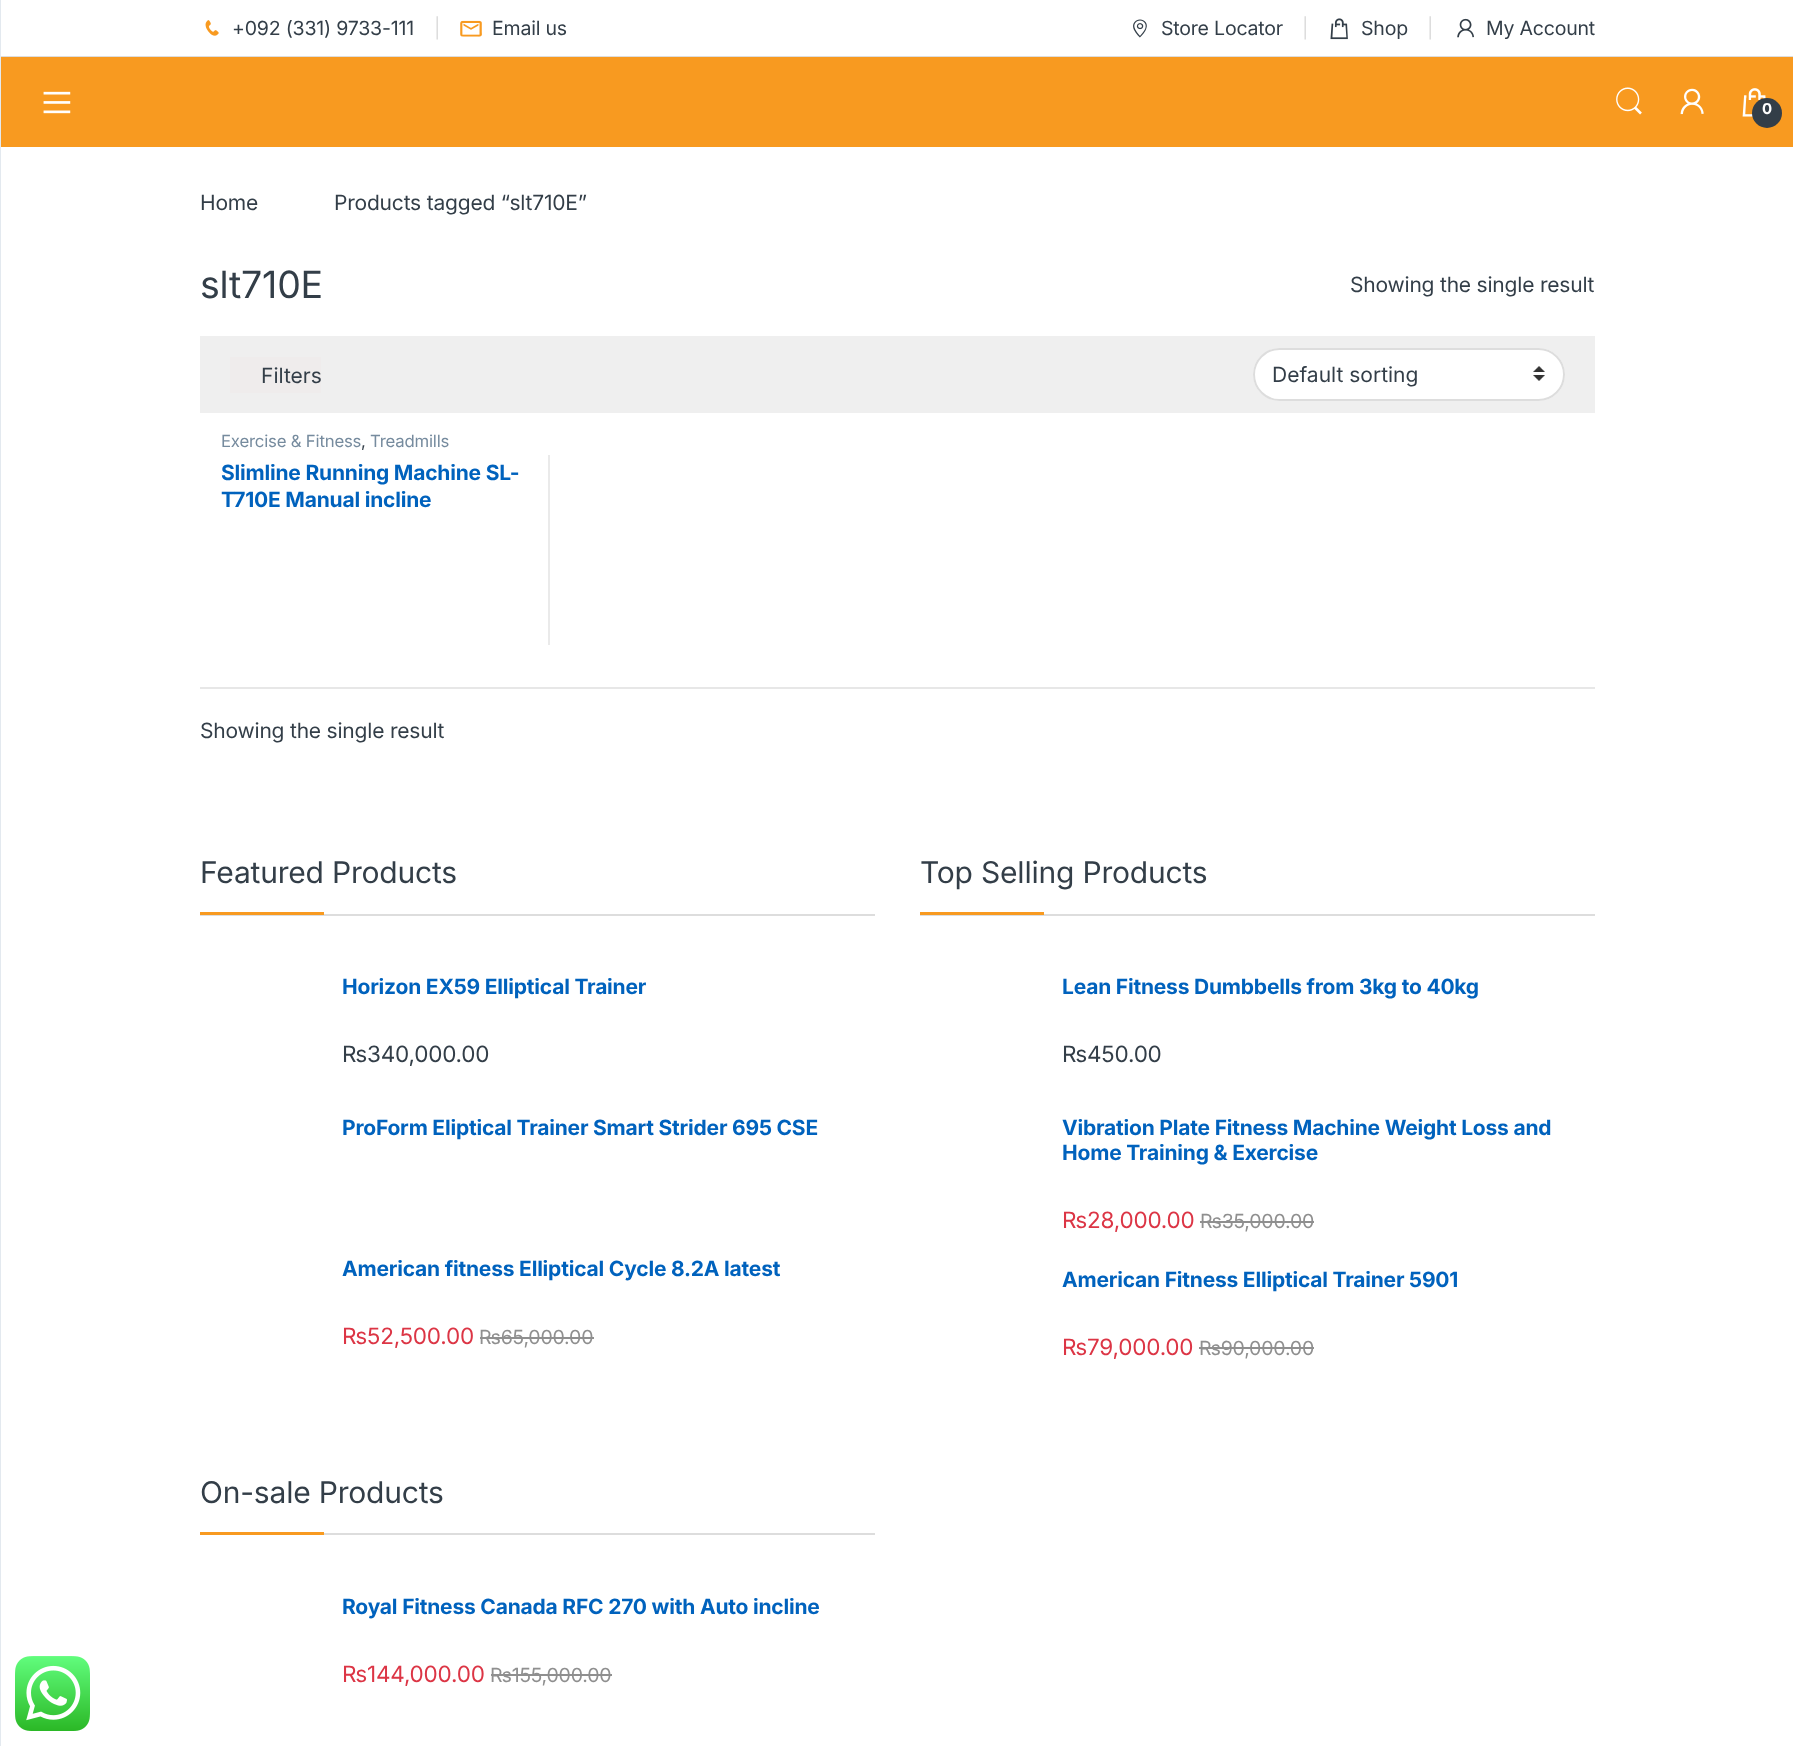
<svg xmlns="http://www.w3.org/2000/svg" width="1793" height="1746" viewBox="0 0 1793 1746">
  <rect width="100%" height="100%" fill="#ffffff"/>
  <rect x="0" y="56" width="1793" height="1" fill="#dddddd"/>
  <image x="205" y="20" width="14" height="16" href="img1.png"/>
  <text x="232" y="35" font-family="Inter" font-size="19.5" letter-spacing="-0.2" fill="#333e48">+092 (331) 9733-111</text>
  <text x="434" y="35" font-family="Inter" font-size="19.5" letter-spacing="-0.2" fill="#dddddd">|</text>
  <image x="460" y="20" width="22" height="17" href="img2.png"/>
  <text x="492" y="35" font-family="Inter" font-size="19.5" letter-spacing="-0.2" fill="#333e48">Email us</text>
  <image x="1133" y="19" width="14" height="19" href="img3.png"/>
  <text x="1161" y="35" font-family="Inter" font-size="19.5" letter-spacing="-0.2" fill="#333e48">Store Locator</text>
  <text x="1302" y="35" font-family="Inter" font-size="19.5" letter-spacing="-0.2" fill="#dddddd">|</text>
  <image x="1330" y="18" width="18" height="22" href="img4.png"/>
  <text x="1361" y="35" font-family="Inter" font-size="19.5" letter-spacing="-0.2" fill="#333e48">Shop</text>
  <text x="1427" y="35" font-family="Inter" font-size="19.5" letter-spacing="-0.2" fill="#dddddd">|</text>
  <image x="1457" y="18" width="17" height="20" href="img5.png"/>
  <text x="1486" y="35" font-family="Inter" font-size="19.5" letter-spacing="-0.2" fill="#333e48">My Account</text>
  <rect x="1" y="57" width="1792" height="90" fill="#f89a20"/>
  <rect x="0" y="0" width="1" height="1746" fill="#e3e9ef"/>
  <image x="43" y="91" width="28" height="23" href="img6.png"/>
  <image x="1616" y="87" width="26" height="28" href="img7.png"/>
  <image x="1680" y="88" width="24" height="27" href="img8.png"/>
  <image x="1742" y="88" width="24" height="29" href="img9.png"/>
  <circle cx="1767" cy="113" r="15" fill="#333e48"/>
  <text x="1762" y="114" font-family="Inter" font-size="15" font-weight="bold" letter-spacing="-0.2" fill="#ffffff">0</text>
  <text x="200" y="210" font-family="Inter" font-size="21" letter-spacing="-0.2" fill="#333e48">Home</text>
  <text x="334" y="210" font-family="Inter" font-size="21" letter-spacing="-0.2" fill="#333e48">Products tagged “slt710E”</text>
  <text x="200" y="298" font-family="Inter" font-size="37.5" letter-spacing="-0.2" fill="#333e48">slt710E</text>
  <text x="1350" y="292" font-family="Inter" font-size="21" letter-spacing="-0.2" fill="#333e48">Showing the single result</text>
  <rect x="200" y="336" width="1395" height="77" fill="#efefef"/>
  <rect x="230" y="357" width="91" height="36" fill="#efecec"/>
  <text x="261" y="383" font-family="Inter" font-size="21" fill="#333e48">Filters</text>
  <rect x="1253" y="348" width="312" height="53" rx="26.5" fill="#ffffff"/>
  <image x="1533" y="366" width="12" height="15" href="img10.png"/>
  <rect x="1254" y="349" width="310" height="51" rx="25.5" fill="none" stroke="#dddddd" stroke-width="2"/>
  <text x="1272" y="382" font-family="Inter" font-size="21" fill="#333e48">Default sorting</text>
  <text x="221" y="447" font-family="Inter" font-size="16.75" letter-spacing="-0.2" fill="#768b9e">Exercise &amp; Fitness</text>
  <text x="361" y="447" font-family="Inter" font-size="16.75" letter-spacing="-0.2" fill="#333e48">,</text>
  <text x="370" y="447" font-family="Inter" font-size="16.75" letter-spacing="-0.2" fill="#768b9e">Treadmills</text>
  <text x="221" y="480" font-family="Inter" font-size="21" font-weight="bold" letter-spacing="-0.2" fill="#0062bd">Slimline Running Machine SL-</text>
  <text x="221" y="507" font-family="Inter" font-size="21" font-weight="bold" letter-spacing="-0.2" fill="#0062bd">T710E Manual incline</text>
  <rect x="548" y="455" width="2" height="190" fill="#eaeaea"/>
  <rect x="200" y="687" width="1395" height="2" fill="#e7e7e7"/>
  <text x="200" y="738" font-family="Inter" font-size="21" letter-spacing="-0.2" fill="#333e48">Showing the single result</text>
  <rect x="200" y="914" width="675" height="2" fill="#dddddd"/>
  <text x="200" y="883" font-family="Inter" font-size="30" letter-spacing="-0.2" fill="#333e48">Featured Products</text>
  <rect x="200" y="912" width="124" height="3" fill="#f89a20"/>
  <text x="342" y="994" font-family="Inter" font-size="21" font-weight="bold" letter-spacing="-0.2" fill="#0062bd">Horizon EX59 Elliptical Trainer</text>
  <text x="342" y="1062" font-family="Inter" font-size="22.5" letter-spacing="-0.2" fill="#333e48">₨340,000.00</text>
  <text x="342" y="1135" font-family="Inter" font-size="21" font-weight="bold" letter-spacing="-0.2" fill="#0062bd">ProForm Eliptical Trainer Smart Strider 695 CSE</text>
  <text x="342" y="1276" font-family="Inter" font-size="21" font-weight="bold" letter-spacing="-0.2" fill="#0062bd">American fitness Elliptical Cycle 8.2A latest</text>
  <text x="342" y="1344" font-family="Inter" font-size="22.5" letter-spacing="-0.2" fill="#dc3545">₨52,500.00</text>
  <text x="479" y="1344" font-family="Inter" font-size="19.5" letter-spacing="-0.2" fill="#8f8f8f">₨65,000.00</text>
  <rect x="480" y="1337" width="114" height="2" fill="#8f8f8f"/>
  <rect x="920" y="914" width="675" height="2" fill="#dddddd"/>
  <text x="920" y="883" font-family="Inter" font-size="30" letter-spacing="-0.2" fill="#333e48">Top Selling Products</text>
  <rect x="920" y="912" width="124" height="3" fill="#f89a20"/>
  <text x="1062" y="994" font-family="Inter" font-size="21" font-weight="bold" letter-spacing="-0.2" fill="#0062bd">Lean Fitness Dumbbells from 3kg to 40kg</text>
  <text x="1062" y="1062" font-family="Inter" font-size="22.5" letter-spacing="-0.2" fill="#333e48">₨450.00</text>
  <text x="1062" y="1135" font-family="Inter" font-size="21" font-weight="bold" letter-spacing="-0.2" fill="#0062bd">Vibration Plate Fitness Machine Weight Loss and</text>
  <text x="1062" y="1160" font-family="Inter" font-size="21" font-weight="bold" letter-spacing="-0.2" fill="#0062bd">Home Training &amp; Exercise</text>
  <text x="1062" y="1228" font-family="Inter" font-size="22.5" letter-spacing="-0.2" fill="#dc3545">₨28,000.00</text>
  <text x="1200" y="1228" font-family="Inter" font-size="19.5" letter-spacing="-0.2" fill="#8f8f8f">₨35,000.00</text>
  <rect x="1200" y="1221" width="114" height="2" fill="#8f8f8f"/>
  <text x="1062" y="1287" font-family="Inter" font-size="21" font-weight="bold" letter-spacing="-0.2" fill="#0062bd">American Fitness Elliptical Trainer 5901</text>
  <text x="1062" y="1355" font-family="Inter" font-size="22.5" letter-spacing="-0.2" fill="#dc3545">₨79,000.00</text>
  <text x="1199" y="1355" font-family="Inter" font-size="19.5" letter-spacing="-0.2" fill="#8f8f8f">₨90,000.00</text>
  <rect x="1199" y="1347" width="115" height="2" fill="#8f8f8f"/>
  <rect x="324" y="1533" width="551" height="2" fill="#dddddd"/>
  <text x="200" y="1503" font-family="Inter" font-size="30" letter-spacing="-0.2" fill="#333e48">On-sale Products</text>
  <rect x="200" y="1532" width="124" height="3" fill="#f89a20"/>
  <text x="342" y="1614" font-family="Inter" font-size="21" font-weight="bold" letter-spacing="-0.2" fill="#0062bd">Royal Fitness Canada RFC 270 with Auto incline</text>
  <text x="342" y="1682" font-family="Inter" font-size="22.5" letter-spacing="-0.2" fill="#dc3545">₨144,000.00</text>
  <text x="490" y="1682" font-family="Inter" font-size="19.5" letter-spacing="-0.2" fill="#8f8f8f">₨155,000.00</text>
  <rect x="491" y="1674" width="121" height="2" fill="#8f8f8f"/>
  <image x="15" y="1656" width="75" height="75" href="img11.png"/>
</svg>
